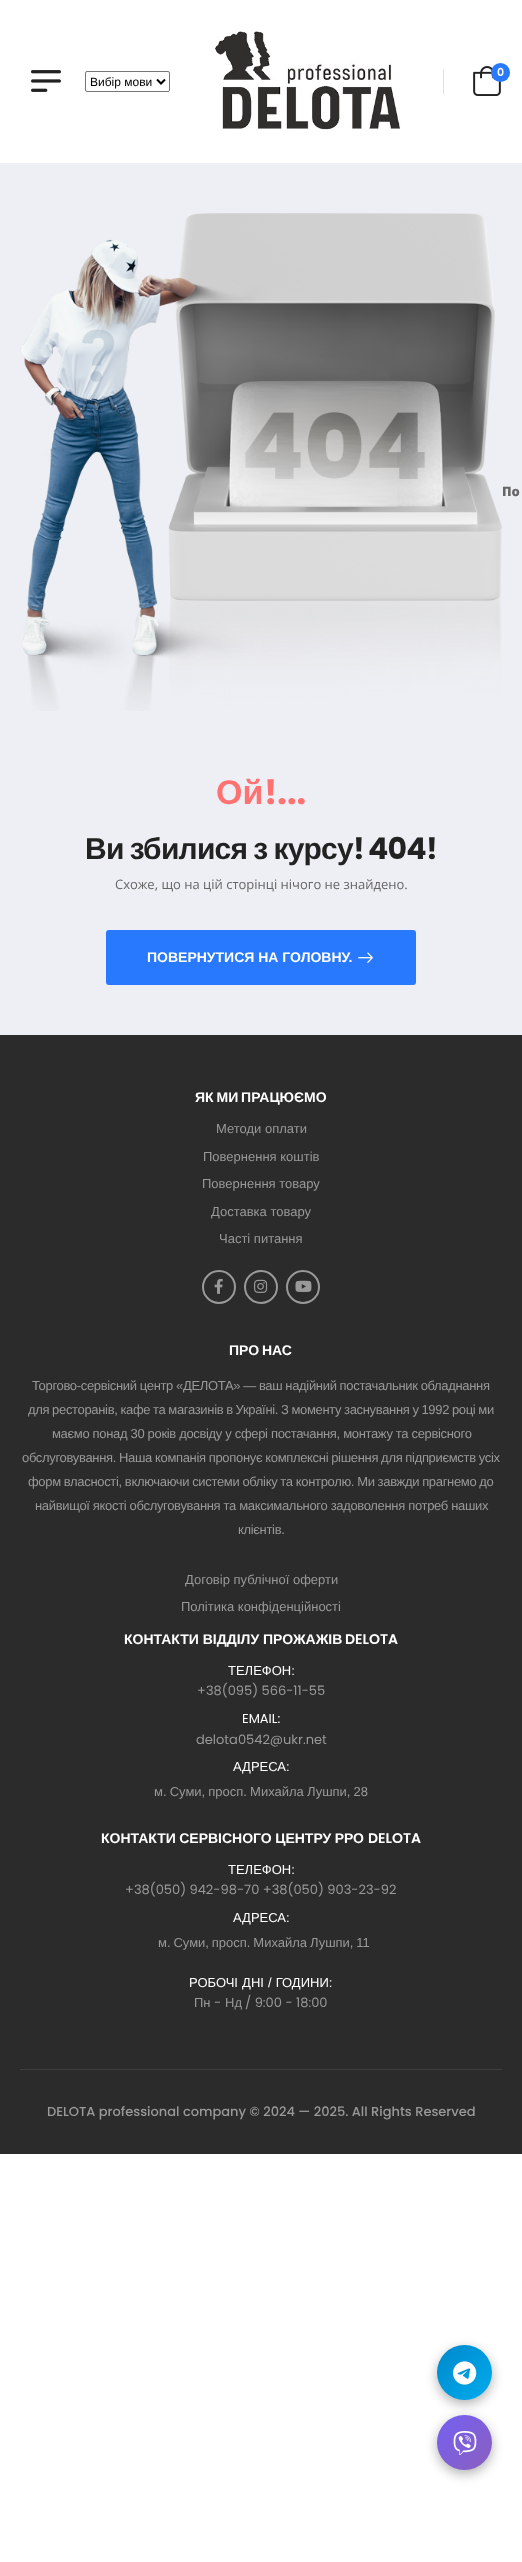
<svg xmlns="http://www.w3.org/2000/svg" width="522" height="2562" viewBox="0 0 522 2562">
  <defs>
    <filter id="blur1" x="-50%" y="-200%" width="200%" height="500%"><feGaussianBlur stdDeviation="6"/></filter>
    <linearGradient id="g1" gradientUnits="userSpaceOnUse" x1="437" y1="2345" x2="492" y2="2400"><stop offset="0" stop-color="#0088cc"/><stop offset="1" stop-color="#00aced"/></linearGradient>
    <linearGradient id="g2" gradientUnits="userSpaceOnUse" x1="437" y1="2415" x2="492" y2="2470"><stop offset="0" stop-color="#7360f2"/><stop offset="1" stop-color="#8b5fbf"/></linearGradient>
  </defs>
  <rect width="100%" height="100%" fill="#ffffff"/>
  <image x="31" y="70" width="30" height="22" href="img1.png"/>
  <rect x="85.5" y="71.5" width="84" height="20" rx="1.5" fill="none" stroke="#767676"/>
  <path d="M157 79.5L161 83.5L165 79.5" fill="none" stroke="#000000" stroke-width="2"/>
  <text x="90" y="86" font-family="Liberation Sans" font-size="12" fill="#000000">Вибір мови</text>
  <image x="215" y="31" width="187" height="99" href="img2.png"/>
  <rect x="443" y="69" width="1" height="25" fill="#e1e1e1"/>
  <image x="473" y="66" width="28" height="30" href="img3.png"/>
  <circle cx="500.5" cy="72.5" r="9.5" fill="#2879fe"/>
  <text x="497" y="76" font-family="Poppins" font-size="11" font-weight="600" letter-spacing="-0.33" fill="#ffffff">0</text>
  <rect x="0" y="163" width="522" height="872" fill="#eeeff4"/>
  <image x="20" y="213" width="482" height="498" href="img4.png"/>
  <text x="502" y="496" font-family="Open Sans" font-size="13" font-weight="800" fill="#666666">По</text>
  <text x="216" y="804" font-family="Liberation Sans" font-size="34" font-weight="bold" fill="#ff7272">Ой</text>
  <text x="264" y="804" font-family="Poppins" font-size="34" font-weight="bold" fill="#ff7272">!...</text>
  <text x="85" y="859" word-spacing="-1.5" font-family="Liberation Sans" font-size="30" font-weight="bold" letter-spacing="-0.75" fill="#222222">Ви збилися з курсу</text>
  <text x="353" y="859" font-family="Poppins" font-size="30" font-weight="bold" letter-spacing="-0.75" fill="#222222">!</text>
  <text x="368" y="859" font-family="Poppins" font-size="30" font-weight="bold" letter-spacing="-0.75" fill="#222222">404!</text>
  <text x="115" y="889" font-family="Open Sans" font-size="13" fill="#666666">Схоже, що на цій сторінці нічого не знайдено.</text>
  <rect x="107" y="931" width="308" height="53" rx="2" fill="#2879fe" stroke="#2879fe" stroke-width="2"/>
  <text x="147" y="962" font-family="Liberation Sans" font-size="14" font-weight="bold" fill="#ffffff">ПОВЕРНУТИСЯ НА ГОЛОВНУ.</text>
  <image x="358" y="952" width="15" height="11" href="img5.png"/>
  <rect x="0" y="1035" width="522" height="1119" fill="#2b2b2b"/>
  <rect x="20" y="2069" width="482" height="1" fill="#3f3f3f"/>
  <text x="195" y="1102" word-spacing="-1" font-family="Liberation Sans" font-size="14" font-weight="bold" fill="#ffffff">ЯК МИ ПРАЦЮЄМО</text>
  <text x="216" y="1133" font-family="Liberation Sans" font-size="13" fill="#999999">Методи оплати</text>
  <text x="203" y="1161" font-family="Liberation Sans" font-size="13" fill="#999999">Повернення коштів</text>
  <text x="202" y="1188" font-family="Liberation Sans" font-size="13" fill="#999999">Повернення товару</text>
  <text x="211" y="1216" font-family="Liberation Sans" font-size="13" fill="#999999">Доставка товару</text>
  <text x="219" y="1243" font-family="Liberation Sans" font-size="13" fill="#999999">Часті питання</text>
  <circle cx="219" cy="1287" r="16" fill="none" stroke="#999999" stroke-width="2"/>
  <image x="214" y="1278" width="9" height="16" href="img6.png"/>
  <circle cx="261" cy="1287" r="16" fill="none" stroke="#999999" stroke-width="2"/>
  <image x="254" y="1279" width="14" height="14" href="img7.png"/>
  <circle cx="303" cy="1287" r="16" fill="none" stroke="#999999" stroke-width="2"/>
  <image x="295" y="1280" width="17" height="12" href="img8.png"/>
  <text x="229" y="1355" word-spacing="-1" font-family="Liberation Sans" font-size="14" font-weight="bold" fill="#ffffff">ПРО НАС</text>
  <text x="32" y="1390" word-spacing="-0.25" font-family="Liberation Sans" font-size="13" letter-spacing="-0.33" fill="#999999">Торгово-сервісний центр «ДЕЛОТА» — ваш надійний постачальник обладнання</text>
  <text x="28" y="1414" word-spacing="-0.4" font-family="Liberation Sans" font-size="13" letter-spacing="-0.33" fill="#999999">для ресторанів, кафе та магазинів в Україні. З моменту заснування у 1992 році ми</text>
  <text x="52" y="1438" font-family="Liberation Sans" font-size="13" letter-spacing="-0.33" fill="#999999">маємо понад 30 років досвіду у сфері постачання, монтажу та сервісного</text>
  <text x="22" y="1462" word-spacing="-0.25" font-family="Liberation Sans" font-size="13" letter-spacing="-0.33" fill="#999999">обслуговування. Наша компанія пропонує комплексні рішення для підприємств усіх</text>
  <text x="28" y="1486" word-spacing="-0.25" font-family="Liberation Sans" font-size="13" letter-spacing="-0.33" fill="#999999">форм власності, включаючи системи обліку та контролю. Ми завжди прагнемо до</text>
  <text x="35" y="1510" font-family="Liberation Sans" font-size="13" letter-spacing="-0.33" fill="#999999">найвищої якості обслуговування та максимального задоволення потреб наших</text>
  <text x="238" y="1534" font-family="Liberation Sans" font-size="13" letter-spacing="-0.33" fill="#999999">клієнтів.</text>
  <text x="185" y="1584" font-family="Liberation Sans" font-size="13" fill="#999999">Договір публічної оферти</text>
  <text x="181" y="1611" font-family="Liberation Sans" font-size="13" fill="#999999">Політика конфіденційності</text>
  <text x="124" y="1644" font-family="Liberation Sans" font-size="14" font-weight="bold" fill="#ffffff">КОНТАКТИ ВІДДІЛУ ПРОЖАЖІВ</text>
  <text x="345" y="1644" font-family="Poppins" font-size="14" font-weight="600" fill="#ffffff">DELOTA</text>
  <text x="228" y="1675" font-family="Liberation Sans" font-size="13" fill="#ffffff">ТЕЛЕФОН:</text>
  <text x="197" y="1695" font-family="Poppins" font-size="13" fill="#999999">+38(095) 566-11-55</text>
  <text x="242" y="1723" font-family="Poppins" font-size="13" fill="#ffffff">EMAIL:</text>
  <text x="196" y="1744" font-family="Poppins" font-size="13" fill="#999999">delota0542@ukr.net</text>
  <text x="233" y="1771" font-family="Liberation Sans" font-size="13" fill="#ffffff">АДРЕСА:</text>
  <text x="154" y="1796" word-spacing="-0.5" font-family="Liberation Sans" font-size="13" fill="#999999">м. Суми, просп. Михайла Лушпи, 28</text>
  <text x="101" y="1843" word-spacing="-0.5" font-family="Liberation Sans" font-size="14" font-weight="bold" fill="#ffffff">КОНТАКТИ СЕРВІСНОГО ЦЕНТРУ РРО</text>
  <text x="368" y="1843" font-family="Poppins" font-size="14" font-weight="600" fill="#ffffff">DELOTA</text>
  <text x="228" y="1874" font-family="Liberation Sans" font-size="13" fill="#ffffff">ТЕЛЕФОН:</text>
  <text x="125" y="1894" font-family="Poppins" font-size="13" fill="#999999">+38(050) 942-98-70 +38(050) 903-23-92</text>
  <text x="233" y="1922" font-family="Liberation Sans" font-size="13" fill="#ffffff">АДРЕСА:</text>
  <text x="158" y="1947" word-spacing="-0.75" font-family="Liberation Sans" font-size="13" fill="#999999">м. Суми, просп. Михайла Лушпи, 11</text>
  <text x="189" y="1987" word-spacing="0.5" font-family="Liberation Sans" font-size="13" fill="#ffffff">РОБОЧІ ДНІ / ГОДИНИ:</text>
  <text x="194" y="2007" font-family="Liberation Sans" font-size="13" fill="#999999">Пн</text>
  <text x="214" y="2007" font-family="Poppins" font-size="13" fill="#999999">-</text>
  <text x="225" y="2007" font-family="Liberation Sans" font-size="13" fill="#999999">Нд</text>
  <text x="245" y="2007" font-family="Poppins" font-size="13" fill="#999999">/ 9:00 - 18:00</text>
  <text x="47" y="2116" font-family="Poppins" font-size="13" font-weight="500" fill="#999999">DELOTA professional company © 2024 — 2025. All Rights Reserved</text>
  <rect x="437" y="2349" width="55" height="55" rx="27.5" fill="#000000" fill-opacity="0.3" filter="url(#blur1)"/>
  <circle cx="464.5" cy="2372.5" r="27.5" fill="url(#g1)"/>
  <image x="453" y="2361" width="24" height="24" href="img9.png"/>
  <rect x="437" y="2419" width="55" height="55" rx="27.5" fill="#000000" fill-opacity="0.3" filter="url(#blur1)"/>
  <circle cx="464.5" cy="2442.5" r="27.5" fill="url(#g2)"/>
  <image x="453" y="2431" width="24" height="24" href="img10.png"/>
</svg>
